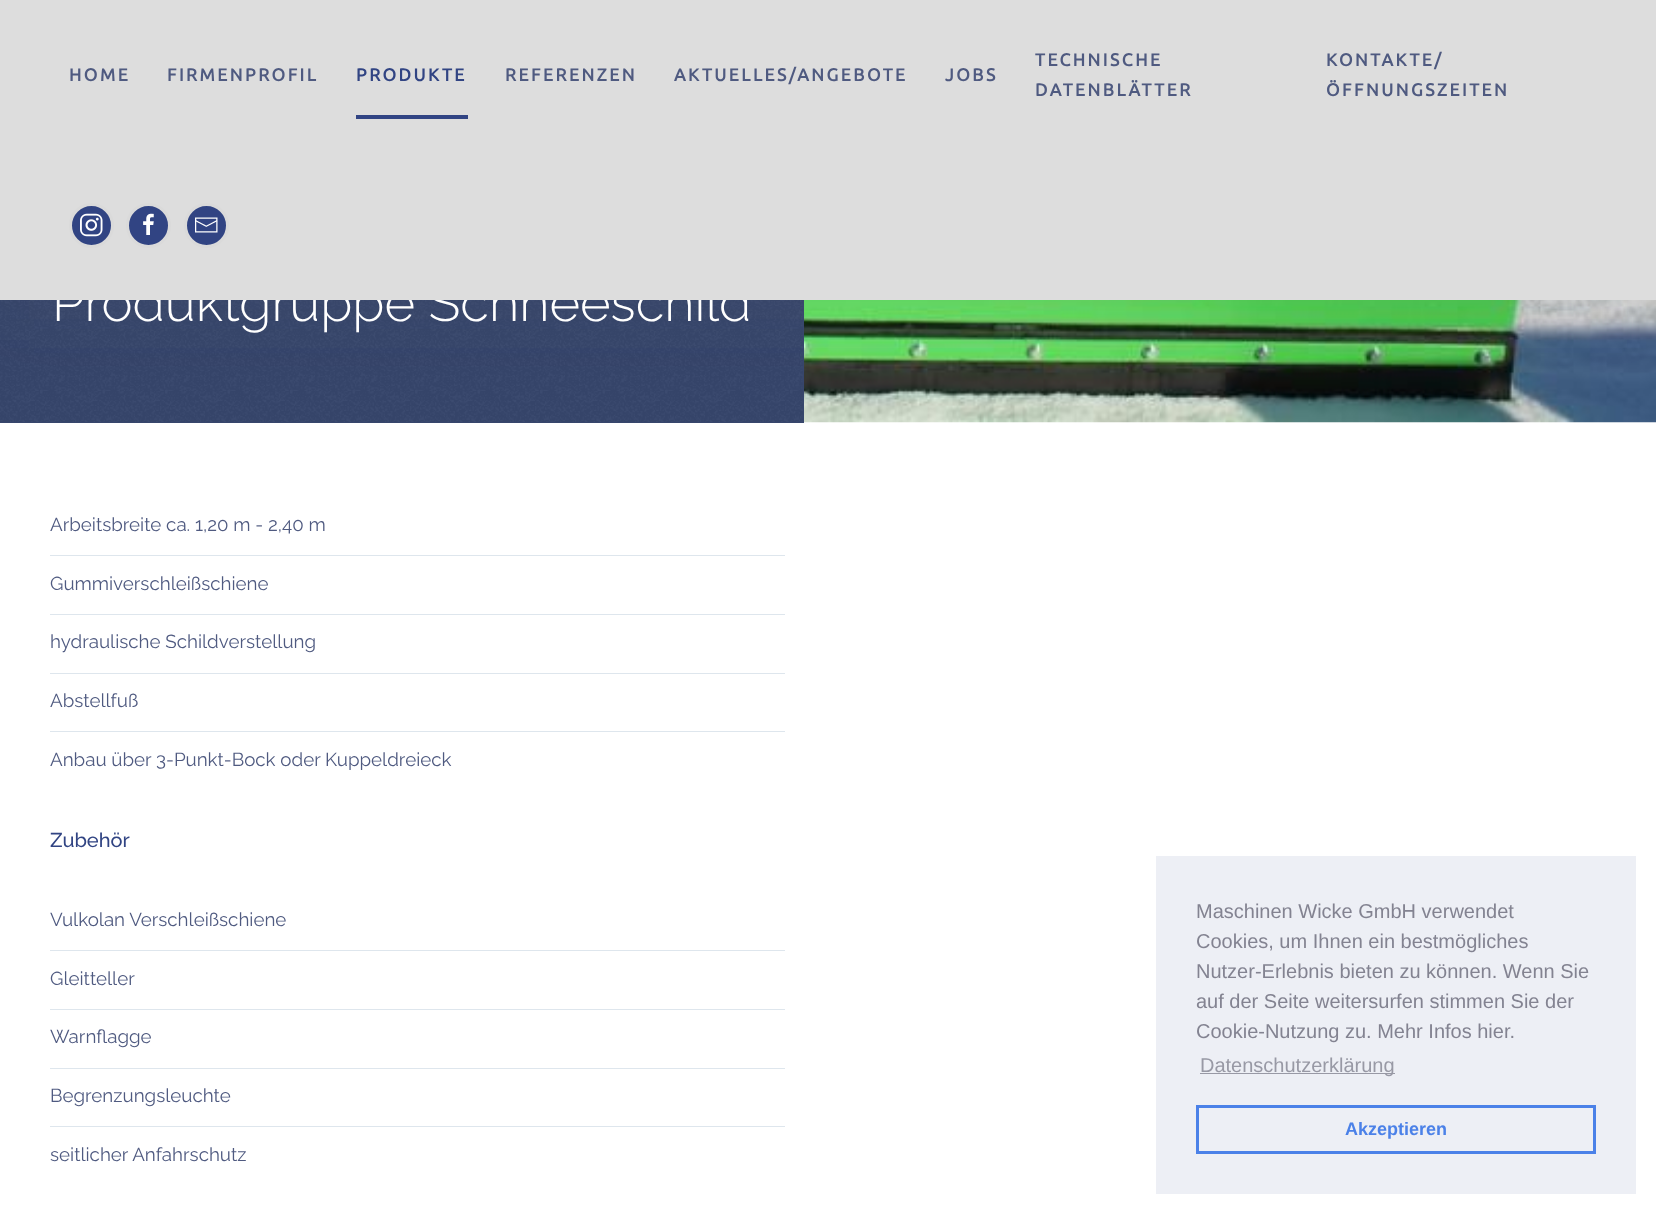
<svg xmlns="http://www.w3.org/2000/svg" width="1656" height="1213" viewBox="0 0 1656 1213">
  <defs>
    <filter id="blur1" x="-50%" y="-200%" width="200%" height="500%"><feGaussianBlur stdDeviation="31"/></filter>
  </defs>
  <rect width="100%" height="100%" fill="#ffffff"/>
  <image x="804" y="300" width="852" height="123" href="img4.png"/>
  <rect x="0" y="300" width="804" height="123" fill="#37466c"/>
  <image x="0" y="300" width="803" height="122" href="img5.png"/>
  <rect x="0" y="19" width="1656" height="300" fill="#555f6d" fill-opacity="0.1" filter="url(#blur1)"/>
  <text x="52" y="321" font-family="Raleway" font-size="52.5" font-weight="300" fill="#ffffff">Produktgruppe Schneeschild</text>
  <rect x="0" y="0" width="1656" height="300" fill="#dddddd"/>
  <text x="69" y="81" font-family="Ubuntu" font-size="17.5" font-weight="bold" letter-spacing="2.5" fill="#4f5a80">HOME</text>
  <text x="167" y="81" font-family="Ubuntu" font-size="17.5" font-weight="bold" letter-spacing="2.5" fill="#4f5a80">FIRMENPROFIL</text>
  <text x="356" y="81" font-family="Ubuntu" font-size="17.5" font-weight="bold" letter-spacing="2.5" fill="#314483">PRODUKTE</text>
  <rect x="356" y="115" width="112" height="4" fill="#314483"/>
  <text x="505" y="81" font-family="Ubuntu" font-size="17.5" font-weight="bold" letter-spacing="2.5" fill="#4f5a80">REFERENZEN</text>
  <text x="674" y="81" font-family="Ubuntu" font-size="17.5" font-weight="bold" letter-spacing="2.5" fill="#4f5a80">AKTUELLES/ANGEBOTE</text>
  <text x="945" y="81" font-family="Ubuntu" font-size="17.5" font-weight="bold" letter-spacing="2.5" fill="#4f5a80">JOBS</text>
  <text x="1035" y="66" font-family="Ubuntu" font-size="17.5" font-weight="bold" letter-spacing="2.5" fill="#4f5a80">TECHNISCHE</text>
  <text x="1035" y="96" font-family="Ubuntu" font-size="17.5" font-weight="bold" letter-spacing="2.5" fill="#4f5a80">DATENBLÄTTER</text>
  <text x="1326" y="66" font-family="Ubuntu" font-size="17.5" font-weight="bold" letter-spacing="2.5" fill="#4f5a80">KONTAKTE/</text>
  <text x="1326" y="96" font-family="Ubuntu" font-size="17.5" font-weight="bold" letter-spacing="2.5" fill="#4f5a80">ÖFFNUNGSZEITEN</text>
  <circle cx="91.5" cy="225.5" r="21" fill="#314483" stroke="#dadada" stroke-width="3"/>
  <image x="80" y="213" width="23" height="24" href="img1.png"/>
  <circle cx="148.5" cy="225.5" r="21" fill="#314483" stroke="#dadada" stroke-width="3"/>
  <image x="143" y="213" width="11" height="22" href="img2.png"/>
  <circle cx="206.5" cy="225.5" r="21" fill="#314483" stroke="#dadada" stroke-width="3"/>
  <image x="195" y="217" width="23" height="16" href="img3.png"/>
  <text x="50" y="531" font-family="Raleway" font-size="18.75" fill="#4f5a80">Arbeitsbreite ca. 1,20 m - 2,40 m</text>
  <rect x="50" y="555" width="735" height="1" fill="#dee6ed"/>
  <text x="50" y="590" font-family="Raleway" font-size="18.75" fill="#4f5a80">Gummiverschleißschiene</text>
  <rect x="50" y="614" width="735" height="1" fill="#dee6ed"/>
  <text x="50" y="648" font-family="Raleway" font-size="18.75" fill="#4f5a80">hydraulische Schildverstellung</text>
  <rect x="50" y="673" width="735" height="1" fill="#dee6ed"/>
  <text x="50" y="707" font-family="Raleway" font-size="18.75" fill="#4f5a80">Abstellfuß</text>
  <rect x="50" y="731" width="735" height="1" fill="#dee6ed"/>
  <text x="50" y="766" font-family="Raleway" font-size="18.75" fill="#4f5a80">Anbau über 3-Punkt-Bock oder Kuppeldreieck</text>
  <text x="50" y="847" font-family="Raleway" font-size="20" font-weight="500" fill="#314483">Zubehör</text>
  <text x="50" y="926" font-family="Raleway" font-size="18.75" fill="#4f5a80">Vulkolan Verschleißschiene</text>
  <rect x="50" y="950" width="735" height="1" fill="#dee6ed"/>
  <text x="50" y="985" font-family="Raleway" font-size="18.75" fill="#4f5a80">Gleitteller</text>
  <rect x="50" y="1009" width="735" height="1" fill="#dee6ed"/>
  <text x="50" y="1043" font-family="Raleway" font-size="18.75" fill="#4f5a80">Warnflagge</text>
  <rect x="50" y="1068" width="735" height="1" fill="#dee6ed"/>
  <text x="50" y="1102" font-family="Raleway" font-size="18.75" fill="#4f5a80">Begrenzungsleuchte</text>
  <rect x="50" y="1126" width="735" height="1" fill="#dee6ed"/>
  <text x="50" y="1161" font-family="Raleway" font-size="18.75" fill="#4f5a80">seitlicher Anfahrschutz</text>
  <rect x="1156" y="856" width="480" height="338" fill="#edeff5"/>
  <text x="1196" y="918" font-family="Liberation Sans" font-size="20" fill="#838391">Maschinen Wicke GmbH verwendet</text>
  <text x="1196" y="948" font-family="Liberation Sans" font-size="20" fill="#838391">Cookies, um Ihnen ein bestmögliches</text>
  <text x="1196" y="978" font-family="Liberation Sans" font-size="20" fill="#838391">Nutzer-Erlebnis bieten zu können. Wenn Sie</text>
  <text x="1196" y="1008" font-family="Liberation Sans" font-size="20" fill="#838391">auf der Seite weitersurfen stimmen Sie der</text>
  <text x="1196" y="1038" font-family="Liberation Sans" font-size="20" fill="#838391">Cookie-Nutzung zu. Mehr Infos hier.</text>
  <rect x="1200" y="1073" width="195" height="1" fill="#9899a5"/>
  <text x="1200" y="1072" font-family="Liberation Sans" font-size="20" fill="#9899a5">Datenschutzerklärung</text>
  <rect x="1197.5" y="1106.5" width="397" height="46" fill="none" stroke="#4b81e8" stroke-width="3"/>
  <text x="1345" y="1135" font-family="Liberation Sans" font-size="18" font-weight="bold" fill="#4b81e8">Akzeptieren</text>
</svg>
